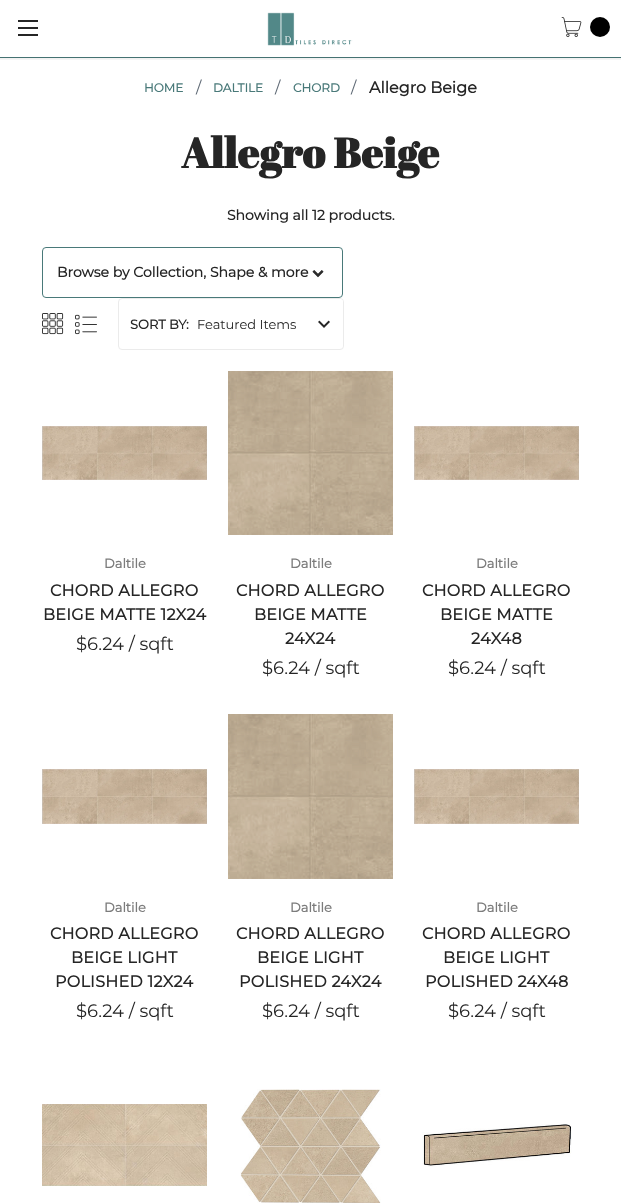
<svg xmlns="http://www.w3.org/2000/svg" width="621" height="1203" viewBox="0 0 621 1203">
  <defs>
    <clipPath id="clip1"><rect x="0" y="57" width="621" height="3"/></clipPath>
    <filter id="blur1" x="-50%" y="-200%" width="200%" height="500%"><feGaussianBlur stdDeviation="1"/></filter>
  </defs>
  <rect width="100%" height="100%" fill="#ffffff"/>
  <rect x="0" y="57" width="621" height="1" fill="#497979"/>
  <g clip-path="url(#clip1)">
    <rect x="-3" y="-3" width="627" height="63" fill="#000000" fill-opacity="0.06" filter="url(#blur1)"/>
  </g>
  <rect x="18" y="27" width="20" height="2" fill="#252525"/>
  <rect x="18" y="20" width="20" height="2" fill="#252525"/>
  <rect x="18" y="34" width="20" height="2" fill="#252525"/>
  <image x="267" y="12" width="86" height="34" href="img1.png"/>
  <image x="561" y="17" width="21" height="20" href="img2.png"/>
  <circle cx="600" cy="27" r="10" fill="#000000"/>
  <text x="144" y="92" font-family="Montserrat" font-size="12" font-weight="bold" fill="#497979">HOME</text>
  <text x="196" y="93" font-family="Montserrat" font-size="16" font-weight="100" fill="#5a6571">/</text>
  <text x="213" y="92" font-family="Montserrat" font-size="12" font-weight="bold" fill="#497979">DALTILE</text>
  <text x="275" y="93" font-family="Montserrat" font-size="16" font-weight="100" fill="#5a6571">/</text>
  <text x="293" y="92" font-family="Montserrat" font-size="12" font-weight="bold" fill="#497979">CHORD</text>
  <text x="351" y="93" font-family="Montserrat" font-size="16" font-weight="100" fill="#5a6571">/</text>
  <text x="369" y="93" font-family="Montserrat" font-size="16" font-weight="bold" fill="#252525">Allegro Beige</text>
  <text x="181" y="168" font-family="Abril Fatface" font-size="42" font-weight="bold" letter-spacing="0.25" fill="#252525">Allegro Beige</text>
  <text x="227" y="220" font-family="Montserrat" font-size="14" font-weight="bold" fill="#252525">Showing all 12 products.</text>
  <rect x="42.5" y="247.5" width="300" height="50" rx="3.5" fill="none" stroke="#497979"/>
  <text x="57" y="277" font-family="Montserrat" font-size="14" font-weight="bold" fill="#252525">Browse by Collection, Shape &amp; more</text>
  <image x="312" y="270" width="12" height="8" href="img3.png"/>
  <image x="42" y="313" width="22" height="22" href="img4.png"/>
  <image x="75" y="314" width="22" height="21" href="img5.png"/>
  <rect x="118.5" y="298.5" width="225" height="51" rx="3.5" fill="none" stroke="#ebebeb"/>
  <text x="130" y="329" font-family="Montserrat" font-size="13" font-weight="bold" fill="#252525">SORT BY:</text>
  <rect x="194" y="299" width="149" height="49" rx="3" fill="#ffffff"/>
  <image x="318" y="320" width="12" height="8" href="img6.png"/>
  <text x="197" y="329" font-family="Montserrat" font-size="13" font-weight="100" fill="#252525">Featured Items</text>
  <image x="42" y="426" width="165" height="54" href="img7.png"/>
  <text x="104" y="568" font-family="Montserrat" font-size="13" font-weight="bold" fill="#7c7c7c">Daltile</text>
  <text x="50" y="596" font-family="Montserrat" font-size="16" font-weight="bold" letter-spacing="0.25" fill="#252525">CHORD ALLEGRO</text>
  <text x="43" y="620" font-family="Montserrat" font-size="16" font-weight="bold" letter-spacing="0.25" fill="#252525">BEIGE MATTE 12X24</text>
  <text x="76" y="650" font-family="Montserrat" font-size="18" font-weight="100" fill="#252525">$6.24 / sqft</text>
  <image x="228" y="371" width="165" height="164" href="img8.png"/>
  <text x="290" y="568" font-family="Montserrat" font-size="13" font-weight="bold" fill="#7c7c7c">Daltile</text>
  <text x="236" y="596" font-family="Montserrat" font-size="16" font-weight="bold" letter-spacing="0.25" fill="#252525">CHORD ALLEGRO</text>
  <text x="254" y="620" font-family="Montserrat" font-size="16" font-weight="bold" letter-spacing="0.25" fill="#252525">BEIGE MATTE</text>
  <text x="285" y="644" font-family="Montserrat" font-size="16" font-weight="bold" letter-spacing="0.25" fill="#252525">24X24</text>
  <text x="262" y="674" font-family="Montserrat" font-size="18" font-weight="100" fill="#252525">$6.24 / sqft</text>
  <image x="414" y="426" width="165" height="54" href="img7.png"/>
  <text x="476" y="568" font-family="Montserrat" font-size="13" font-weight="bold" fill="#7c7c7c">Daltile</text>
  <text x="422" y="596" font-family="Montserrat" font-size="16" font-weight="bold" letter-spacing="0.25" fill="#252525">CHORD ALLEGRO</text>
  <text x="440" y="620" font-family="Montserrat" font-size="16" font-weight="bold" letter-spacing="0.25" fill="#252525">BEIGE MATTE</text>
  <text x="471" y="644" font-family="Montserrat" font-size="16" font-weight="bold" letter-spacing="0.25" fill="#252525">24X48</text>
  <text x="448" y="674" font-family="Montserrat" font-size="18" font-weight="100" fill="#252525">$6.24 / sqft</text>
  <image x="42" y="769" width="165" height="55" href="img9.png"/>
  <text x="104" y="912" font-family="Montserrat" font-size="13" font-weight="bold" fill="#7c7c7c">Daltile</text>
  <text x="50" y="939" font-family="Montserrat" font-size="16" font-weight="bold" letter-spacing="0.25" fill="#252525">CHORD ALLEGRO</text>
  <text x="71" y="963" font-family="Montserrat" font-size="16" font-weight="bold" letter-spacing="0.25" fill="#252525">BEIGE LIGHT</text>
  <text x="55" y="987" font-family="Montserrat" font-size="16" font-weight="bold" letter-spacing="0.25" fill="#252525">POLISHED 12X24</text>
  <text x="76" y="1017" font-family="Montserrat" font-size="18" font-weight="100" fill="#252525">$6.24 / sqft</text>
  <image x="228" y="714" width="165" height="165" href="img10.png"/>
  <text x="290" y="912" font-family="Montserrat" font-size="13" font-weight="bold" fill="#7c7c7c">Daltile</text>
  <text x="236" y="939" font-family="Montserrat" font-size="16" font-weight="bold" letter-spacing="0.25" fill="#252525">CHORD ALLEGRO</text>
  <text x="257" y="963" font-family="Montserrat" font-size="16" font-weight="bold" letter-spacing="0.25" fill="#252525">BEIGE LIGHT</text>
  <text x="239" y="987" font-family="Montserrat" font-size="16" font-weight="bold" letter-spacing="0.25" fill="#252525">POLISHED 24X24</text>
  <text x="262" y="1017" font-family="Montserrat" font-size="18" font-weight="100" fill="#252525">$6.24 / sqft</text>
  <image x="414" y="769" width="165" height="55" href="img9.png"/>
  <text x="476" y="912" font-family="Montserrat" font-size="13" font-weight="bold" fill="#7c7c7c">Daltile</text>
  <text x="422" y="939" font-family="Montserrat" font-size="16" font-weight="bold" letter-spacing="0.25" fill="#252525">CHORD ALLEGRO</text>
  <text x="443" y="963" font-family="Montserrat" font-size="16" font-weight="bold" letter-spacing="0.25" fill="#252525">BEIGE LIGHT</text>
  <text x="425" y="987" font-family="Montserrat" font-size="16" font-weight="bold" letter-spacing="0.25" fill="#252525">POLISHED 24X48</text>
  <text x="448" y="1017" font-family="Montserrat" font-size="18" font-weight="100" fill="#252525">$6.24 / sqft</text>
  <image x="42" y="1104" width="165" height="82" href="img11.png"/>
  <image x="240" y="1089" width="141" height="114" href="img12.png"/>
  <image x="422" y="1124" width="150" height="43" href="img13.png"/>
</svg>
